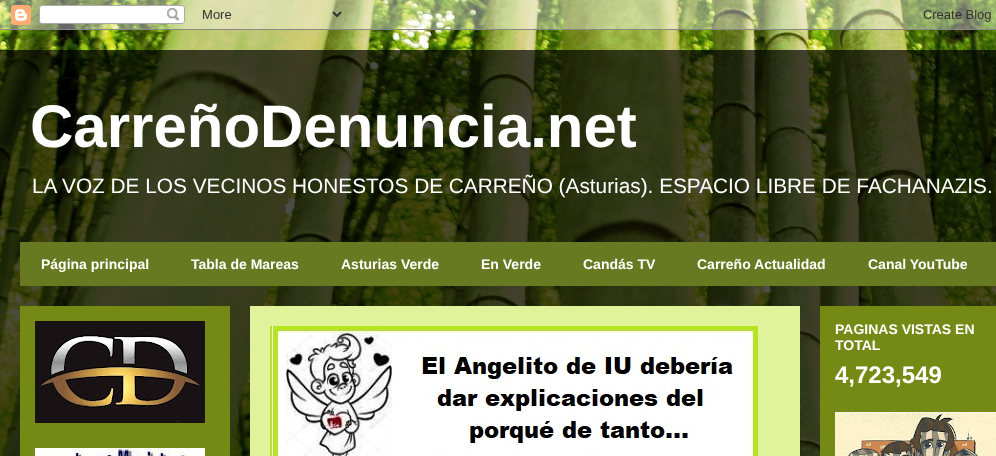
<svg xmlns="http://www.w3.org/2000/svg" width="996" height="456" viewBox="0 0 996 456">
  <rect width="100%" height="100%" fill="#ffffff"/>
  <image x="0" y="0" width="996" height="456" href="img1.png"/>
  <image x="0" y="0" width="996" height="30" href="img2.png"/>
  <rect x="0" y="50" width="996" height="406" fill="#000000" fill-opacity="0.7"/>
  <text x="30" y="147" font-family="Liberation Sans" font-size="60" font-weight="bold" fill="#ffffff">CarreñoDenuncia.net</text>
  <text x="32" y="193" font-family="Liberation Sans" font-size="20.8" fill="#ffffff">LA VOZ DE LOS VECINOS HONESTOS DE CARREÑO (Asturias). ESPACIO LIBRE DE FACHANAZIS.</text>
  <rect x="20" y="242" width="976" height="44" fill="#687a21"/>
  <text x="41" y="269" font-family="Liberation Sans" font-size="14" font-weight="bold" fill="#ffffff">Página principal</text>
  <text x="191" y="269" font-family="Liberation Sans" font-size="14" font-weight="bold" fill="#ffffff">Tabla de Mareas</text>
  <text x="341" y="269" font-family="Liberation Sans" font-size="14" font-weight="bold" fill="#ffffff">Asturias Verde</text>
  <text x="481" y="269" font-family="Liberation Sans" font-size="14" font-weight="bold" fill="#ffffff">En Verde</text>
  <text x="583" y="269" font-family="Liberation Sans" font-size="14" font-weight="bold" fill="#ffffff">Candás TV</text>
  <text x="697" y="269" font-family="Liberation Sans" font-size="14" font-weight="bold" fill="#ffffff">Carreño Actualidad</text>
  <text x="868" y="269" font-family="Liberation Sans" font-size="14" font-weight="bold" fill="#ffffff">Canal YouTube</text>
  <rect x="20" y="306" width="210" height="150" fill="#748a15"/>
  <rect x="820" y="306" width="176" height="150" fill="#748a15"/>
  <image x="35" y="321" width="170" height="102" href="img3.png"/>
  <image x="35" y="448" width="170" height="8" href="img4.png"/>
  <rect x="250" y="306" width="550" height="150" fill="#e1f39a"/>
  <image x="270" y="326" width="488" height="130" href="img5.png"/>
  <text x="835" y="334" font-family="Liberation Sans" font-size="14" font-weight="bold" fill="#ffffff">PAGINAS VISTAS EN</text>
  <text x="835" y="350" font-family="Liberation Sans" font-size="14" font-weight="bold" fill="#ffffff">TOTAL</text>
  <text x="835" y="383" font-family="Liberation Sans" font-size="24" font-weight="bold" fill="#ffffff">4,723,549</text>
  <image x="835" y="412" width="161" height="44" href="img6.png"/>
</svg>
